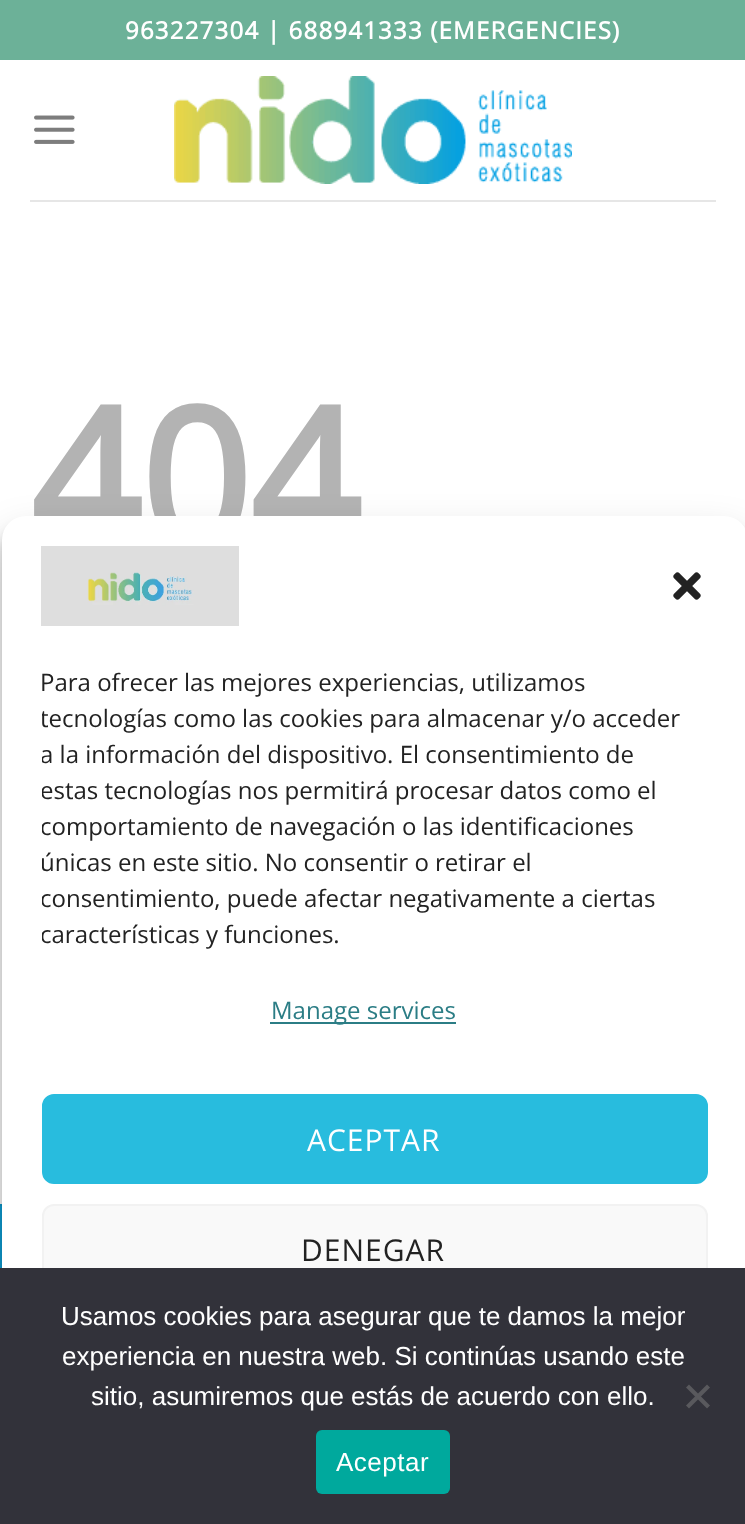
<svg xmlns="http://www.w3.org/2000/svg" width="745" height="1524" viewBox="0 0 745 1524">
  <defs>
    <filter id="blur1" x="-50%" y="-200%" width="200%" height="500%"><feGaussianBlur stdDeviation="6"/></filter>
    <filter id="blur2" x="-50%" y="-200%" width="200%" height="500%"><feGaussianBlur stdDeviation="20"/></filter>
    <clipPath id="clip1"><rect x="42" y="666" width="666" height="298"/></clipPath>
  </defs>
  <rect width="100%" height="100%" fill="#ffffff"/>
  <rect x="0" y="0" width="745" height="60" fill="#6cb198"/>
  <text x="125" y="39" font-family="Open Sans" font-size="24" font-weight="bold" letter-spacing="1.2" fill="#ffffff">963227304 | 688941333 (EMERGENCIES)</text>
  <image x="34" y="115" width="41" height="29" href="img1.png"/>
  <image x="174" y="76" width="398" height="108" href="img2.png"/>
  <rect x="30" y="200" width="686" height="2" fill="#e6e6e6"/>
  <text x="30" y="548" font-family="Open Sans" font-size="192" font-weight="bold" fill="#b3b3b3">404</text>
  <rect x="0" y="1206" width="2" height="62" fill="#0da2da"/>
  <rect x="0" y="1204" width="2" height="2" fill="#0c9acf"/>
  <rect x="2" y="528" width="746" height="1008" rx="24" fill="#000000" fill-opacity="0.23" filter="url(#blur1)"/>
  <rect x="2" y="536" width="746" height="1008" rx="24" fill="#000000" fill-opacity="0.19" filter="url(#blur2)"/>
  <rect x="2" y="516" width="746" height="1008" rx="24" fill="#ffffff"/>
  <image x="41" y="546" width="198" height="80" href="img3.png"/>
  <image x="673" y="572" width="28" height="28" href="img4.png"/>
  <text x="40" y="691" font-family="Open Sans" font-size="24" fill="#222222">Para ofrecer las mejores experiencias, utilizamos</text>
  <g clip-path="url(#clip1)">
    <text x="40" y="727" font-family="Open Sans" font-size="24" fill="#222222">tecnologías como las cookies para almacenar y/o acceder</text>
    <text x="40" y="763" font-family="Open Sans" font-size="24" fill="#222222">a la información del dispositivo. El consentimiento de</text>
    <text x="40" y="799" font-family="Open Sans" font-size="24" fill="#222222">estas tecnologías nos permitirá procesar datos como el</text>
    <text x="40" y="835" font-family="Open Sans" font-size="24" fill="#222222">comportamiento de navegación o las identificaciones</text>
    <text x="40" y="871" font-family="Open Sans" font-size="24" fill="#222222">únicas en este sitio. No consentir o retirar el</text>
    <text x="40" y="907" font-family="Open Sans" font-size="24" fill="#222222">consentimiento, puede afectar negativamente a ciertas</text>
    <text x="40" y="943" font-family="Open Sans" font-size="24" fill="#222222">características y funciones.</text>
  </g>
  <rect x="270" y="1022" width="186" height="2" fill="#2b7d85"/>
  <text x="271" y="1019" font-family="Open Sans" font-size="24" fill="#2b7d85">Manage services</text>
  <rect x="43" y="1095" width="664" height="88" rx="11" fill="#28bcde" stroke="#28bcde" stroke-width="2"/>
  <text x="307" y="1151" font-family="Open Sans" font-size="30" letter-spacing="1" fill="#ffffff">ACEPTAR</text>
  <rect x="43" y="1205" width="664" height="88" rx="11" fill="#f9f9f9" stroke="#f2f2f2" stroke-width="2"/>
  <text x="301" y="1261" font-family="Open Sans" font-size="30" letter-spacing="1" fill="#222222">DENEGAR</text>
  <rect x="0" y="1268" width="745" height="256" fill="#32323a"/>
  <text x="61" y="1325" font-family="Liberation Sans" font-size="26" fill="#ffffff">Usamos cookies para asegurar que te damos la mejor</text>
  <text x="62" y="1365" font-family="Liberation Sans" font-size="26" fill="#ffffff">experiencia en nuestra web. Si continúas usando este</text>
  <text x="91" y="1405" font-family="Liberation Sans" font-size="26" fill="#ffffff">sitio, asumiremos que estás de acuerdo con ello.</text>
  <path d="M707 1384.5L710 1387.5L689 1408.5L686 1405.5Z" fill="#59595d"/>
  <path d="M686 1387.5L689 1384.5L710 1405.5L707 1408.5Z" fill="#59595d"/>
  <rect x="316" y="1430" width="134" height="64" rx="6" fill="#00a99d"/>
  <text x="336" y="1471" font-family="Liberation Sans" font-size="26" letter-spacing="0.5" fill="#ffffff">Aceptar</text>
</svg>
